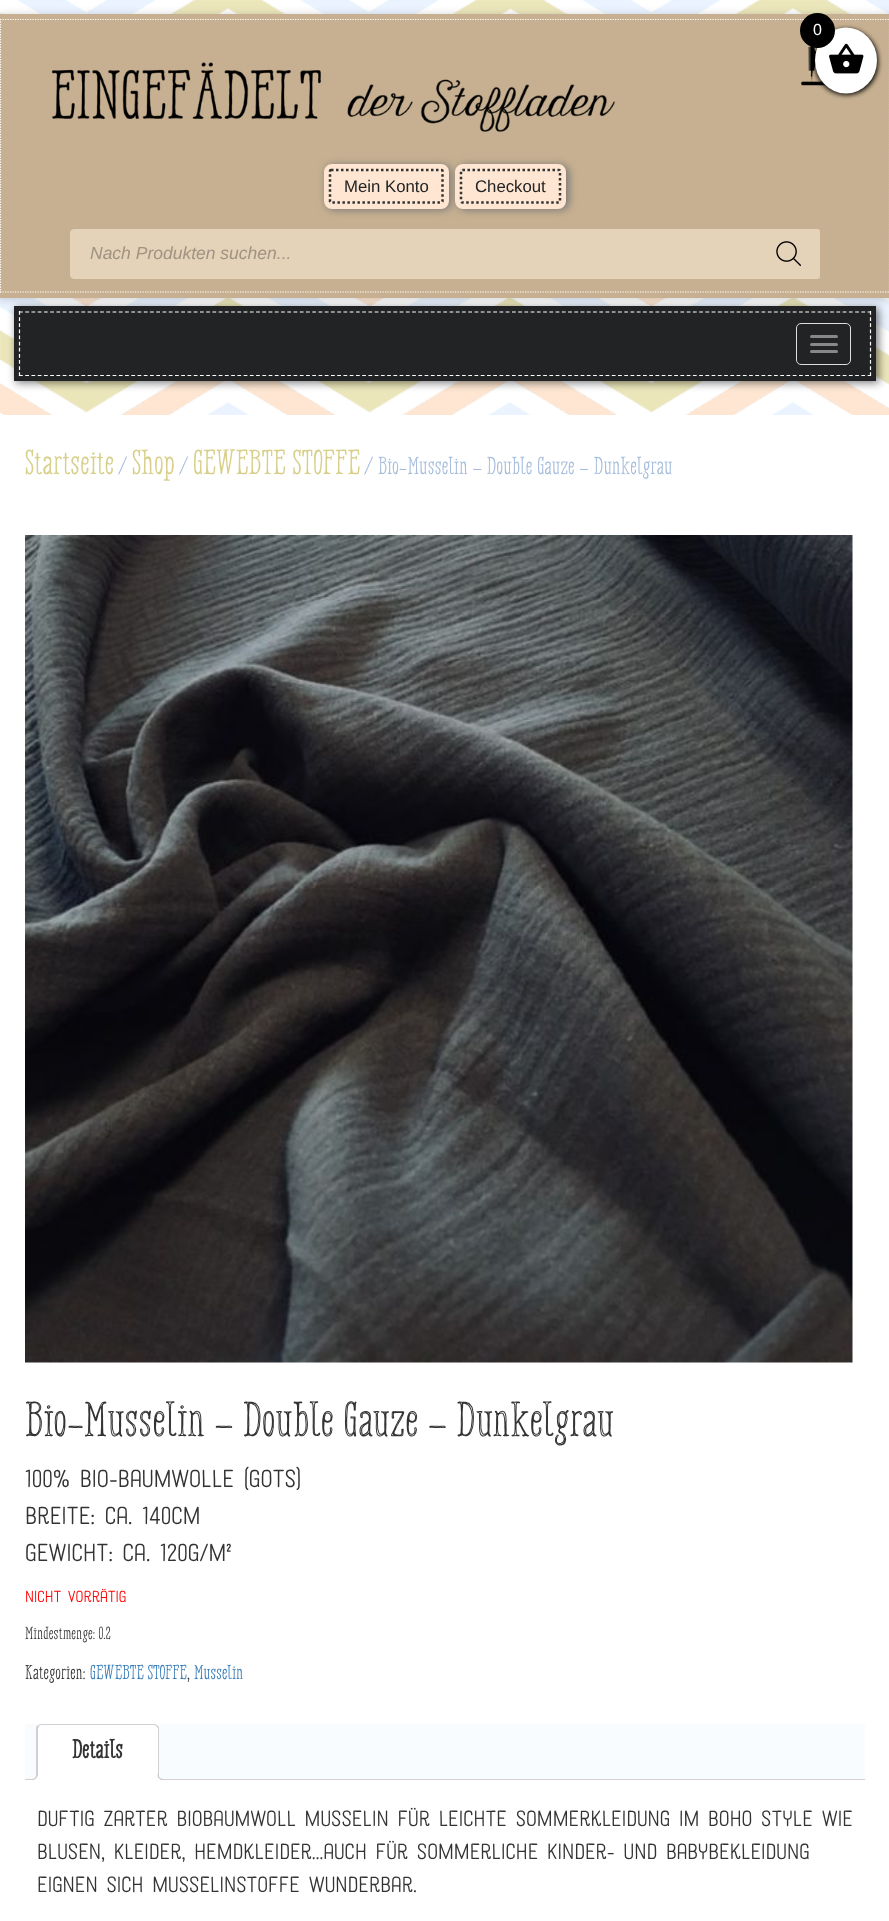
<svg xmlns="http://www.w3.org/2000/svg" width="889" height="1921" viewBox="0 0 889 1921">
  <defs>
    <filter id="blur1" x="-50%" y="-200%" width="200%" height="500%"><feGaussianBlur stdDeviation="4"/></filter>
    <filter id="blur2" x="-50%" y="-200%" width="200%" height="500%"><feGaussianBlur stdDeviation="2.5"/></filter>
    <clipPath id="clip1"><rect x="25" y="1724" width="840" height="56"/></clipPath>
  </defs>
  <rect width="100%" height="100%" fill="#ffffff"/>
  <image x="0" y="0" width="889" height="415" href="img1.png"/>
  <rect x="-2" y="15" width="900" height="284" fill="#0a0a00" fill-opacity="0.2" filter="url(#blur1)"/>
  <rect x="-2.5" y="16.5" width="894" height="279" fill="none" stroke="#c7b091" stroke-width="5"/>
  <rect x="0" y="19" width="889" height="274" fill="#c7b091"/>
  <path d="M0 19.5H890" fill="none" stroke="#ffffff" stroke-width="1.2" stroke-dasharray="1.25 1.25"/>
  <image x="51" y="46" width="776" height="86" href="img3.png"/>
  <rect x="815" y="29" width="63" height="66" rx="31.5" fill="#000000" filter="url(#blur2)"/>
  <ellipse cx="846" cy="60.5" rx="31" ry="33" fill="#ffffff"/>
  <image x="829" y="43" width="35" height="31" href="img2.png"/>
  <circle cx="817.5" cy="30.5" r="17.5" fill="#000000"/>
  <text x="813" y="35" font-family="Liberation Sans" font-size="16" fill="#ffffff">0</text>
  <path d="M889.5 19V292.5" fill="none" stroke="#ffffff" stroke-width="1.2" stroke-dasharray="1.25 1.25"/>
  <path d="M0 292H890" fill="none" stroke="#ffffff" stroke-width="1.2" stroke-dasharray="1.25 1.25"/>
  <path d="M.5 19V292.5" fill="none" stroke="#ffffff" stroke-width="1.2" stroke-dasharray="1.25 1.25"/>
  <rect x="326" y="165" width="125" height="45" rx="8" fill="#777777" filter="url(#blur1)"/>
  <rect x="326.5" y="166.5" width="120" height="40" rx="5.5" fill="none" stroke="#fee6d2" stroke-width="5"/>
  <rect x="329" y="169" width="115" height="35" rx="2.5" fill="#fee6d2"/>
  <path d="M331 170H441C442 170 442.5 170.5 442.5 171V201C442.5 202 442 202.5 441 202.5H331C330.5 202.5 330 202 330 201V171C330 170.5 330.5 170 331 170Z" fill="none" stroke="#333333" stroke-width="2.5" stroke-dasharray="2.5 2.5"/>
  <text x="344" y="192" font-family="Liberation Sans" font-size="16.75" fill="#212324">Mein Konto</text>
  <rect x="458" y="165" width="111" height="45" rx="8" fill="#777777" filter="url(#blur1)"/>
  <rect x="457.5" y="166.5" width="106" height="40" rx="5.5" fill="none" stroke="#fee6d2" stroke-width="5"/>
  <rect x="460" y="169" width="101" height="35" rx="2.5" fill="#fee6d2"/>
  <path d="M462.5 170H559C559.5 170 560 170.5 560 171V201C560 202 559.5 202.5 559 202.5H462.5C462 202.5 461 202 461 201V171C461 170.5 462 170 462.5 170Z" fill="none" stroke="#333333" stroke-width="2.5" stroke-dasharray="2.5 2.5"/>
  <text x="475" y="192" font-family="Liberation Sans" font-size="16.75" fill="#212324">Checkout</text>
  <rect x="70.5" y="229.5" width="749" height="49" rx="3.5" fill="#e4d2b9" stroke="#e4d2b9"/>
  <text x="90" y="259" font-family="Liberation Sans" font-size="17.5" font-style="italic" fill="#a09382">Nach Produkten suchen...</text>
  <path d="M758 229H817.5C819 229 820 230 820 231.5V276.5C820 278 819 279 817.5 279H758Z" fill="#e4d2b9"/>
  <image x="776" y="241" width="25" height="26" href="img4.png"/>
  <rect x="16" y="308" width="863" height="75" fill="#0a0a00" fill-opacity="0.5" filter="url(#blur1)"/>
  <rect x="16.5" y="308.5" width="857" height="70" fill="none" stroke="#212324" stroke-width="5"/>
  <rect x="19" y="311" width="852" height="65" fill="#212324"/>
  <path d="M19 312H871" fill="none" stroke="#ffffff" stroke-width="1.2" stroke-dasharray="3.75 2.49"/>
  <path d="M870.5 311V376" fill="none" stroke="#ffffff" stroke-width="1.2" stroke-dasharray="3.75 2.38"/>
  <path d="M19 375.5H871" fill="none" stroke="#ffffff" stroke-width="1.2" stroke-dasharray="3.75 2.49"/>
  <path d="M19.5 311V376" fill="none" stroke="#ffffff" stroke-width="1.2" stroke-dasharray="3.75 2.38"/>
  <rect x="796.5" y="323.5" width="54" height="41" rx="4.5" fill="none" stroke="#dddddd"/>
  <rect x="810" y="335" width="28" height="3" rx="1.5" fill="#888888"/>
  <rect x="810" y="343" width="28" height="3" rx="1.5" fill="#888888"/>
  <rect x="810" y="350" width="28" height="3" rx="1.5" fill="#888888"/>
  <text x="25" y="474" font-family="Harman" font-size="34.5" fill="#d8d08a">Startseite</text>
  <text x="118" y="474" font-family="Harman" font-size="24.5" fill="#a5bddc">/</text>
  <text x="132" y="474" font-family="Harman" font-size="34.5" fill="#d8d08a">Shop</text>
  <text x="179" y="474" font-family="Harman" font-size="24.5" fill="#a5bddc">/</text>
  <text x="193" y="474" font-family="Harman" font-size="34.5" fill="#d8d08a">GEWEBTE STOFFE</text>
  <text x="364" y="474" font-family="Harman" font-size="24.5" fill="#a5bddc">/ Bio-Musselin – Double Gauze – Dunkelgrau</text>
  <image x="25" y="535" width="828" height="828" href="img5.png"/>
  <text x="25" y="1436" font-family="'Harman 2'" font-size="49" fill="#333333">Bio-Musselin – Double Gauze – Dunkelgrau</text>
  <text x="25" y="1487" font-family="'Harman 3'" font-size="24.5" fill="#333333">100% Bio-Baumwolle (GOTS)</text>
  <text x="25" y="1524" font-family="'Harman 3'" font-size="24.5" fill="#333333">Breite: ca. 140cm</text>
  <text x="25" y="1561" font-family="'Harman 3'" font-size="24.5" fill="#333333">Gewicht: ca. 120g/m²</text>
  <text x="25" y="1602" font-family="'Harman 3'" font-size="16" fill="#ff0000">Nicht vorrätig</text>
  <text x="25" y="1639" font-family="Harman" font-size="17.5" fill="#333333">Mindestmenge: 0.2</text>
  <text x="25" y="1679" font-family="Harman" font-size="20" fill="#333333">Kategorien:</text>
  <text x="90" y="1679" font-family="Harman" font-size="20" fill="#337ab7">GEWEBTE STOFFE</text>
  <text x="187" y="1679" font-family="Harman" font-size="20" fill="#333333">,</text>
  <text x="194" y="1679" font-family="Harman" font-size="20" fill="#337ab7">Musselin</text>
  <rect x="25" y="1724" width="840" height="55" fill="#f9fcff"/>
  <rect x="25" y="1779" width="840" height="1" fill="#d3ced2"/>
  <path d="M41 1724H154C157 1724 159 1726 159 1729V1780H36V1729C36 1726 38 1724 41 1724Z" fill="#ffffff"/>
  <path d="M41 1724L38 1725L39 1726L41 1725H154L156 1726L157 1725L154 1724Z" fill="#d3ced2"/>
  <path d="M157 1725L159 1727V1780L158 1779V1728L156 1726Z" fill="#d3ced2"/>
  <path d="M159 1780L158 1779H38V1778L36 1780Z" fill="#ffffff"/>
  <path d="M36 1780L38 1778V1729L39 1726L38 1725L36 1727Z" fill="#d3ced2"/>
  <text x="72" y="1758" font-family="Harman" font-size="26" font-weight="bold" fill="#333333">Details</text>
  <g clip-path="url(#clip1)">
    <path d="M34 1780V1783C39 1783 40 1780.5 40 1776H37.5C37 1778 35.5 1779 34 1780Z" fill="#ffffff"/>
  </g>
  <path d="M31 1774H37.5C37.5 1778 35.5 1780 31 1780ZM31 1774H36C36 1777.5 35 1779 31 1779Z" fill="#d3ced2" fill-rule="evenodd"/>
  <g clip-path="url(#clip1)">
    <path d="M155 1776C155 1780.5 156 1783 161 1783V1780C159.5 1779 158 1778 157.5 1776Z" fill="#ffffff"/>
  </g>
  <path d="M157.5 1774H164V1780C160.5 1780 157.5 1778.5 157.5 1775ZM159 1774H164V1779C161.5 1779 159 1778 159 1775Z" fill="#d3ced2" fill-rule="evenodd"/>
  <text x="37" y="1826" font-family="'Harman 3'" font-size="21.9" fill="#333333">Duftig zarter Biobaumwoll Musselin für leichte Sommerkleidung im Boho Style wie</text>
  <text x="37" y="1859" font-family="'Harman 3'" font-size="21.9" fill="#333333">Blusen, Kleider, Hemdkleider…auch für sommerliche Kinder- und Babybekleidung</text>
  <text x="37" y="1892" font-family="'Harman 3'" font-size="21.9" fill="#333333">eignen sich Musselinstoffe wunderbar.</text>
</svg>
